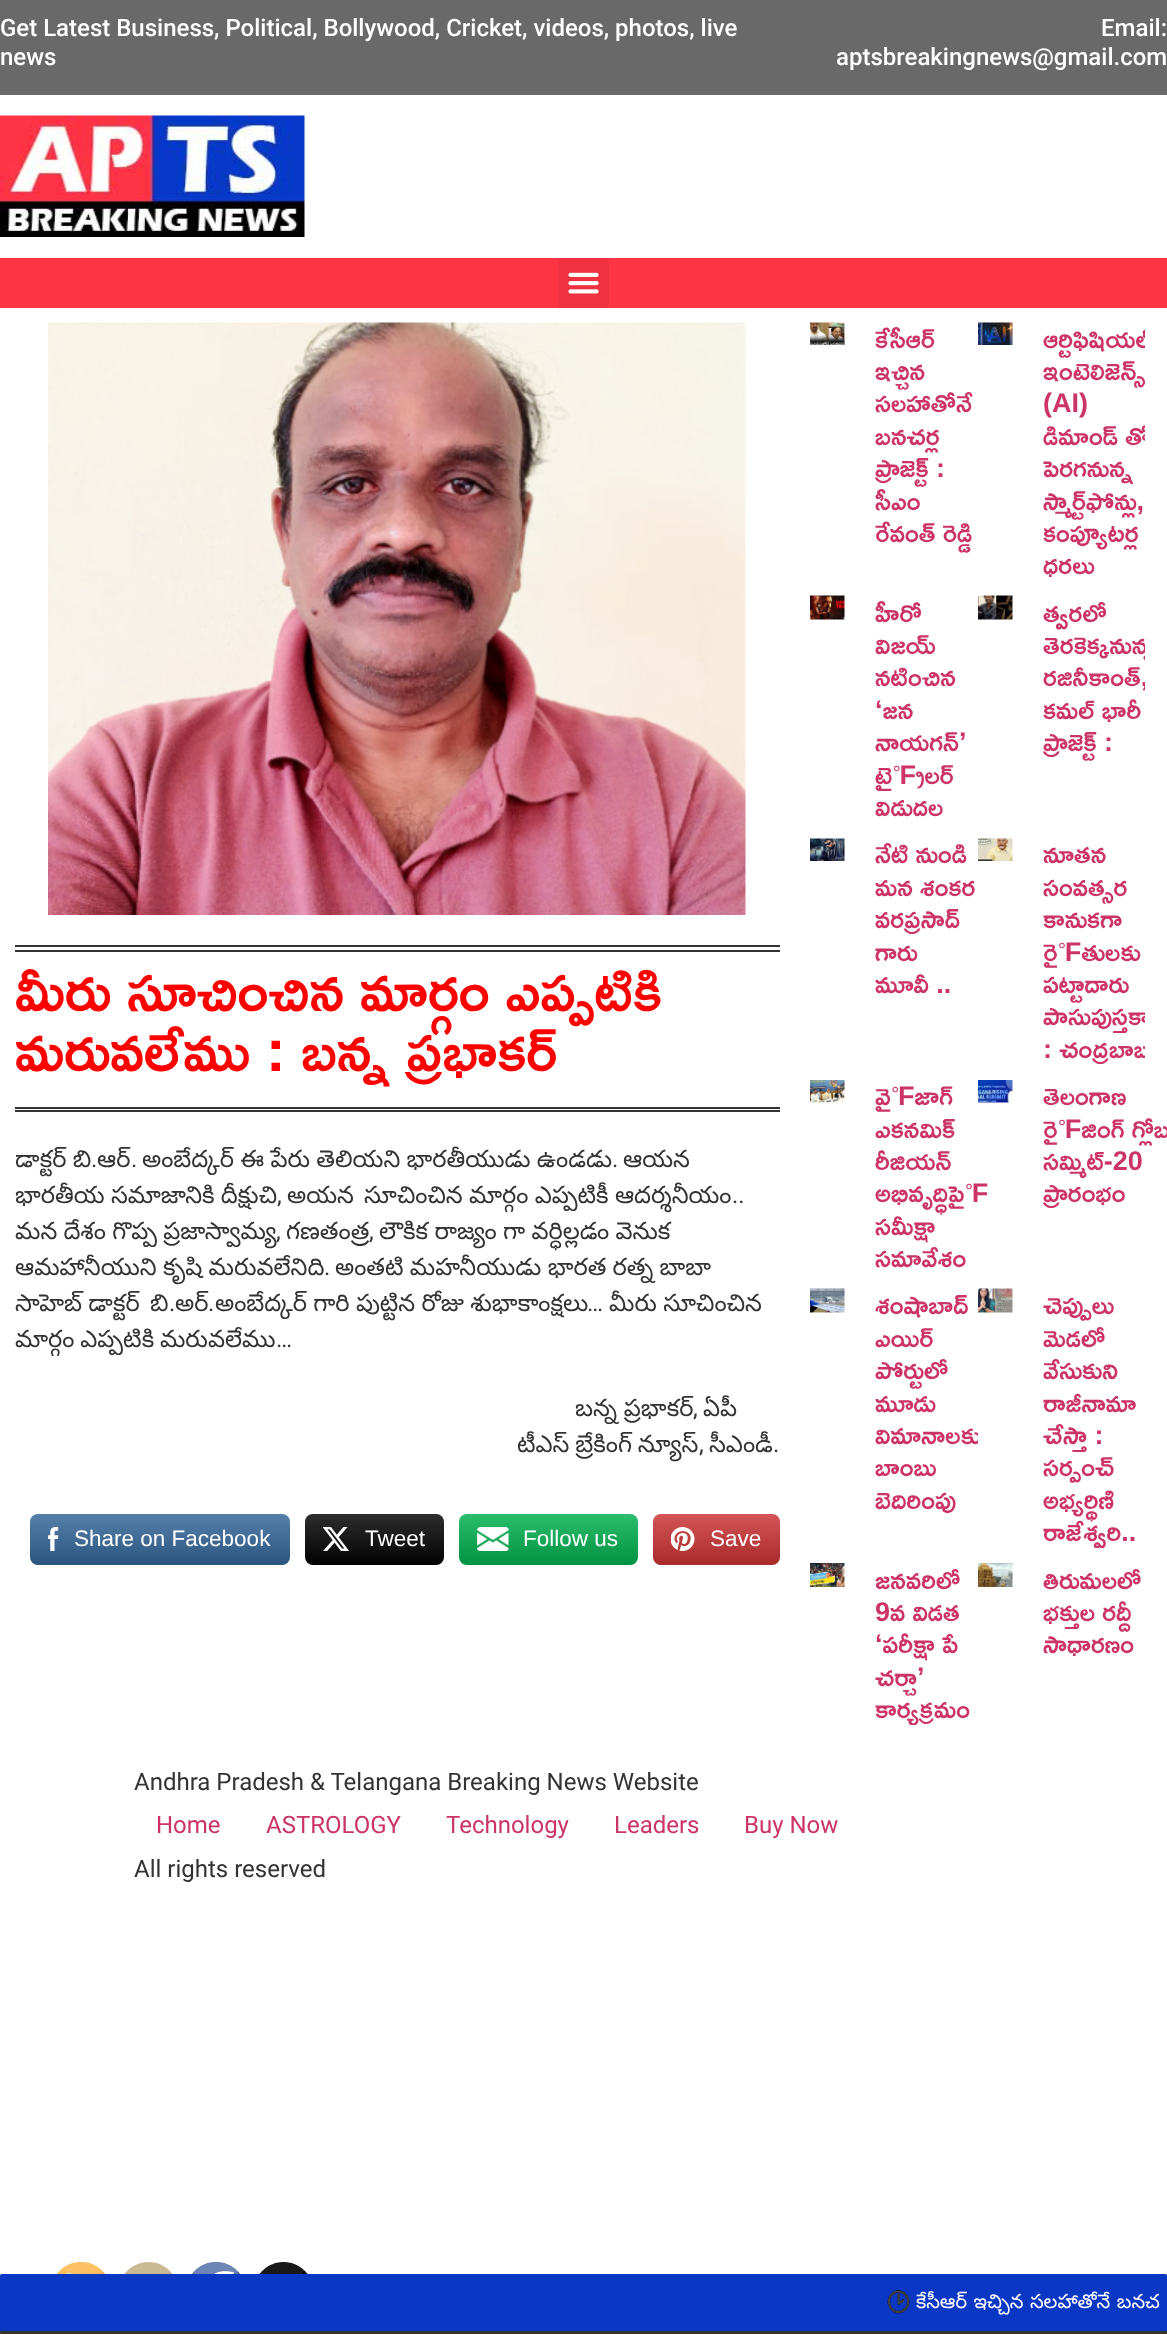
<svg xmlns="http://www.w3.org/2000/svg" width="1167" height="2334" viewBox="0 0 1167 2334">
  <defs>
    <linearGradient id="g1" gradientUnits="userSpaceOnUse" x1="160" y1="1565" x2="160" y2="1514"><stop offset="0" stop-color="#000000" stop-opacity="0.17"/><stop offset="1" stop-color="#ffffff" stop-opacity="0.17"/></linearGradient>
    <linearGradient id="g2" gradientUnits="userSpaceOnUse" x1="374" y1="1565" x2="374" y2="1514"><stop offset="0" stop-color="#000000" stop-opacity="0.17"/><stop offset="1" stop-color="#ffffff" stop-opacity="0.17"/></linearGradient>
    <linearGradient id="g3" gradientUnits="userSpaceOnUse" x1="548" y1="1565" x2="548" y2="1514"><stop offset="0" stop-color="#000000" stop-opacity="0.17"/><stop offset="1" stop-color="#ffffff" stop-opacity="0.17"/></linearGradient>
    <linearGradient id="g4" gradientUnits="userSpaceOnUse" x1="716" y1="1565" x2="716" y2="1514"><stop offset="0" stop-color="#000000" stop-opacity="0.17"/><stop offset="1" stop-color="#ffffff" stop-opacity="0.17"/></linearGradient>
    <clipPath id="clip1"><rect x="978" y="323" width="167" height="258"/></clipPath>
    <clipPath id="clip2"><rect x="978" y="596" width="167" height="228"/></clipPath>
    <clipPath id="clip3"><rect x="978" y="839" width="167" height="226"/></clipPath>
    <clipPath id="clip4"><rect x="810" y="1289" width="168" height="259"/></clipPath>
    <clipPath id="clip5"><rect x="978" y="1289" width="167" height="259"/></clipPath>
    <clipPath id="clip6"><rect x="810" y="1563" width="168" height="162"/></clipPath>
  </defs>
  <rect width="100%" height="100%" fill="#ffffff"/>
  <rect x="0" y="0" width="1167" height="95" fill="#696969"/>
  <text x="0" y="36" font-family="Roboto" font-size="24" font-weight="500" fill="#ffffff">Get Latest Business, Political, Bollywood, Cricket, videos, photos, live</text>
  <text x="0" y="65" font-family="Roboto" font-size="24" font-weight="500" fill="#ffffff">news</text>
  <text x="1101" y="36" font-family="Roboto" font-size="24" font-weight="500" fill="#ffffff">Email:</text>
  <text x="836" y="65" font-family="Roboto" font-size="24" font-weight="500" fill="#ffffff">aptsbreakingnews@gmail.com</text>
  <image x="0" y="115" width="305" height="122" href="img1.png"/>
  <rect x="0" y="258" width="1167" height="50" fill="#fc3444"/>
  <rect x="558" y="258" width="51" height="50" rx="5" fill="#ef3141"/>
  <image x="568" y="272" width="31" height="22" href="img2.png"/>
  <image x="48" y="322" width="698" height="593" href="img3.png"/>
  <rect x="15" y="945" width="765" height="2" fill="#333333"/>
  <rect x="15" y="950" width="765" height="2" fill="#333333"/>
  <rect x="15" y="1107" width="765" height="2" fill="#333333"/>
  <rect x="15" y="1110" width="765" height="2" fill="#333333"/>
  <text x="15" y="1011" font-family="Ramabhadra" font-size="60" fill="#ff0000">మీరు సూచించిన మార్గం ఎప్పటికి</text>
  <text x="15" y="1071" font-family="Ramabhadra" font-size="60" fill="#ff0000">మరువలేము : బన్న ప్రభాకర్</text>
  <text x="15" y="1167" word-spacing="-0.5" font-family="Noto Sans Telugu" font-size="24" fill="#333333">డాక్టర్ బి</text>
  <text x="91" y="1167" font-family="Roboto" font-size="24" fill="#333333">.</text>
  <text x="97" y="1167" font-family="Noto Sans Telugu" font-size="24" fill="#333333">ఆర్</text>
  <text x="131" y="1167" font-family="Roboto" font-size="24" fill="#333333">.</text>
  <text x="142" y="1167" word-spacing="-0.5" font-family="Noto Sans Telugu" font-size="24" fill="#333333">అంబేద్కర్ ఈ పేరు తెలియని భారతీయుడు ఉండడు</text>
  <text x="612" y="1167" font-family="Roboto" font-size="24" fill="#333333">.</text>
  <text x="623" y="1167" font-family="Noto Sans Telugu" font-size="24" fill="#333333">ఆయన</text>
  <text x="15" y="1203" word-spacing="-0.5" font-family="Noto Sans Telugu" font-size="24" fill="#333333">భారతీయ సమాజానికి దీక్షుచి</text>
  <text x="277" y="1203" font-family="Roboto" font-size="24" fill="#333333">,</text>
  <text x="287" y="1203" font-family="Noto Sans Telugu" font-size="24" fill="#333333">అయన</text>
  <text x="364" y="1203" word-spacing="-0.5" font-family="Noto Sans Telugu" font-size="24" fill="#333333">సూచించిన మార్గం ఎప్పటికీ ఆదర్శనీయం</text>
  <text x="732" y="1203" font-family="Roboto" font-size="24" fill="#333333">..</text>
  <text x="15" y="1239" word-spacing="-0.5" font-family="Noto Sans Telugu" font-size="24" fill="#333333">మన దేశం గొప్ప ప్రజాస్వామ్య</text>
  <text x="276" y="1239" font-family="Roboto" font-size="24" fill="#333333">,</text>
  <text x="286" y="1239" font-family="Noto Sans Telugu" font-size="24" fill="#333333">గణతంత్ర</text>
  <text x="369" y="1239" font-family="Roboto" font-size="24" fill="#333333">,</text>
  <text x="379" y="1239" word-spacing="-0.5" font-family="Noto Sans Telugu" font-size="24" fill="#333333">లౌకిక రాజ్యం గా వర్ధిల్లడం వెనుక</text>
  <text x="15" y="1275" word-spacing="-0.5" font-family="Noto Sans Telugu" font-size="24" fill="#333333">ఆమహానీయుని కృషి మరువలేనిది</text>
  <text x="324" y="1275" font-family="Roboto" font-size="24" fill="#333333">.</text>
  <text x="335" y="1275" word-spacing="-0.5" font-family="Noto Sans Telugu" font-size="24" fill="#333333">అంతటి మహనీయుడు భారత రత్న బాబా</text>
  <text x="15" y="1311" word-spacing="-0.5" font-family="Noto Sans Telugu" font-size="24" fill="#333333">సాహెబ్ డాక్టర్</text>
  <text x="150" y="1311" font-family="Noto Sans Telugu" font-size="24" fill="#333333">బి</text>
  <text x="169" y="1311" font-family="Roboto" font-size="24" fill="#333333">.</text>
  <text x="175" y="1311" font-family="Noto Sans Telugu" font-size="24" fill="#333333">అర్</text>
  <text x="208" y="1311" font-family="Roboto" font-size="24" fill="#333333">.</text>
  <text x="215" y="1311" word-spacing="-0.5" font-family="Noto Sans Telugu" font-size="24" fill="#333333">అంబేద్కర్ గారి పుట్టిన రోజు శుభాకాంక్షలు</text>
  <text x="587" y="1311" font-family="Roboto" font-size="24" fill="#333333">…</text>
  <text x="609" y="1311" word-spacing="-0.5" font-family="Noto Sans Telugu" font-size="24" fill="#333333">మీరు సూచించిన</text>
  <text x="15" y="1347" word-spacing="-1" font-family="Noto Sans Telugu" font-size="24" fill="#333333">మార్గం ఎప్పటికి మరువలేము</text>
  <text x="276" y="1347" font-family="Roboto" font-size="24" fill="#333333">…</text>
  <text x="575" y="1416" font-family="Noto Sans Telugu" font-size="24" fill="#333333">బన్న ప్రభాకర్</text>
  <text x="693" y="1416" font-family="Roboto" font-size="24" fill="#333333">,</text>
  <text x="703" y="1416" font-family="Noto Sans Telugu" font-size="24" fill="#333333">ఏపీ</text>
  <text x="517" y="1452" word-spacing="-1" font-family="Noto Sans Telugu" font-size="24" fill="#333333">టీఎస్ బ్రేకింగ్ న్యూస్</text>
  <text x="699" y="1452" font-family="Roboto" font-size="24" fill="#333333">,</text>
  <text x="709" y="1452" font-family="Noto Sans Telugu" font-size="24" fill="#333333">సీఎండీ</text>
  <text x="773" y="1452" font-family="Roboto" font-size="24" fill="#333333">.</text>
  <rect x="30" y="1514" width="260" height="51" rx="8" fill="#336699"/>
  <rect x="30" y="1514" width="260" height="51" rx="8" fill="url(#g1)"/>
  <image x="48" y="1527" width="11" height="24" href="img4.png"/>
  <text x="74" y="1546" font-family="Liberation Sans" font-size="22.5" fill="#ffffff">Share on Facebook</text>
  <rect x="305" y="1514" width="139" height="51" rx="8" fill="#020202"/>
  <rect x="305" y="1514" width="139" height="51" rx="8" fill="url(#g2)"/>
  <image x="323" y="1527" width="26" height="24" href="img5.png"/>
  <text x="365" y="1546" font-family="Liberation Sans" font-size="22.5" fill="#ffffff">Tweet</text>
  <rect x="459" y="1514" width="179" height="51" rx="8" fill="#00b04e"/>
  <rect x="459" y="1514" width="179" height="51" rx="8" fill="url(#g3)"/>
  <image x="477" y="1527" width="32" height="24" href="img6.png"/>
  <text x="523" y="1546" font-family="Liberation Sans" font-size="22.5" fill="#ffffff">Follow us</text>
  <rect x="653" y="1514" width="127" height="51" rx="8" fill="#cb3233"/>
  <rect x="653" y="1514" width="127" height="51" rx="8" fill="url(#g4)"/>
  <image x="671" y="1527" width="24" height="24" href="img7.png"/>
  <text x="710" y="1546" font-family="Liberation Sans" font-size="22.5" fill="#ffffff">Save</text>
  <image x="810" y="322" width="35" height="23" href="img8.png"/>
  <text x="875" y="348" font-family="Ramabhadra" font-size="27" fill="#cc3366">కేసీఆర్</text>
  <text x="875" y="380" font-family="Ramabhadra" font-size="27" fill="#cc3366">ఇచ్చిన</text>
  <text x="875" y="412" font-family="Ramabhadra" font-size="27" fill="#cc3366">సలహాతోనే</text>
  <text x="875" y="445" font-family="Ramabhadra" font-size="27" fill="#cc3366">బనచర్ల</text>
  <text x="875" y="477" font-family="Ramabhadra" font-size="27" fill="#cc3366">ప్రాజెక్ట్ :</text>
  <text x="875" y="510" font-family="Ramabhadra" font-size="27" fill="#cc3366">సీఎం</text>
  <text x="875" y="542" font-family="Ramabhadra" font-size="27" fill="#cc3366">రేవంత్ రెడ్డి</text>
  <image x="978" y="322" width="35" height="23" href="img9.png"/>
  <g clip-path="url(#clip1)">
    <text x="1043" y="348" font-family="Ramabhadra" font-size="27" fill="#cc3366">ఆర్టిఫిషియల్</text>
  </g>
  <text x="1043" y="380" font-family="Ramabhadra" font-size="27" fill="#cc3366">ఇంటెలిజెన్స్</text>
  <text x="1043" y="412" font-family="Ramabhadra" font-size="27" fill="#cc3366">(AI)</text>
  <g clip-path="url(#clip1)">
    <text x="1043" y="445" font-family="Ramabhadra" font-size="27" fill="#cc3366">డిమాండ్ తో</text>
  </g>
  <text x="1043" y="477" font-family="Ramabhadra" font-size="27" fill="#cc3366">పెరగనున్న</text>
  <text x="1043" y="510" font-family="Ramabhadra" font-size="27" fill="#cc3366">స్మార్ట్‌ఫోన్లు,</text>
  <text x="1043" y="542" font-family="Ramabhadra" font-size="27" fill="#cc3366">కంప్యూటర్ల</text>
  <text x="1043" y="574" font-family="Ramabhadra" font-size="27" fill="#cc3366">ధరలు</text>
  <image x="810" y="595" width="35" height="25" href="img10.png"/>
  <text x="875" y="622" font-family="Ramabhadra" font-size="27" fill="#cc3366">హీరో</text>
  <text x="875" y="654" font-family="Ramabhadra" font-size="27" fill="#cc3366">విజయ్</text>
  <text x="875" y="686" font-family="Ramabhadra" font-size="27" fill="#cc3366">నటించిన</text>
  <text x="875" y="719" font-family="Ramabhadra" font-size="27" fill="#cc3366">‘జన</text>
  <text x="875" y="751" font-family="Ramabhadra" font-size="27" fill="#cc3366">నాయగన్‌’</text>
  <text x="875" y="784" font-family="Ramabhadra" font-size="27" fill="#cc3366">ట్రైలర్‌</text>
  <text x="875" y="816" font-family="Ramabhadra" font-size="27" fill="#cc3366">విడుదల</text>
  <image x="978" y="595" width="35" height="25" href="img11.png"/>
  <text x="1043" y="622" font-family="Ramabhadra" font-size="27" fill="#cc3366">త్వరలో</text>
  <g clip-path="url(#clip2)">
    <text x="1043" y="654" font-family="Ramabhadra" font-size="27" fill="#cc3366">తెరకెక్కనున్న</text>
    <text x="1043" y="686" font-family="Ramabhadra" font-size="27" fill="#cc3366">రజినీకాంత్,</text>
  </g>
  <text x="1043" y="719" font-family="Ramabhadra" font-size="27" fill="#cc3366">కమల్ భారీ</text>
  <text x="1043" y="751" font-family="Ramabhadra" font-size="27" fill="#cc3366">ప్రాజెక్ట్ :</text>
  <image x="810" y="838" width="35" height="23" href="img12.png"/>
  <text x="875" y="863" font-family="Ramabhadra" font-size="27" fill="#cc3366">నేటి నుండి</text>
  <text x="875" y="896" font-family="Ramabhadra" font-size="27" fill="#cc3366">మన శంకర</text>
  <text x="875" y="928" font-family="Ramabhadra" font-size="27" fill="#cc3366">వరప్రసాద్</text>
  <text x="875" y="961" font-family="Ramabhadra" font-size="27" fill="#cc3366">గారు</text>
  <text x="875" y="993" font-family="Ramabhadra" font-size="27" fill="#cc3366">మూవీ ..</text>
  <image x="978" y="838" width="35" height="23" href="img13.png"/>
  <text x="1043" y="863" font-family="Ramabhadra" font-size="27" fill="#cc3366">నూతన</text>
  <text x="1043" y="896" font-family="Ramabhadra" font-size="27" fill="#cc3366">సంవత్సర</text>
  <text x="1043" y="928" font-family="Ramabhadra" font-size="27" fill="#cc3366">కానుకగా</text>
  <text x="1043" y="961" font-family="Ramabhadra" font-size="27" fill="#cc3366">రైతులకు</text>
  <text x="1043" y="993" font-family="Ramabhadra" font-size="27" fill="#cc3366">పట్టాదారు</text>
  <g clip-path="url(#clip3)">
    <text x="1043" y="1025" font-family="Ramabhadra" font-size="27" fill="#cc3366">పాసుపుస్తకా</text>
    <text x="1043" y="1058" font-family="Ramabhadra" font-size="27" fill="#cc3366">: చంద్రబాబ</text>
  </g>
  <image x="810" y="1080" width="35" height="23" href="img14.png"/>
  <text x="875" y="1105" font-family="Ramabhadra" font-size="27" fill="#cc3366">వైజాగ్</text>
  <text x="875" y="1138" font-family="Ramabhadra" font-size="27" fill="#cc3366">ఎకనమిక్</text>
  <text x="875" y="1170" font-family="Ramabhadra" font-size="27" fill="#cc3366">రీజియన్</text>
  <text x="875" y="1202" font-family="Ramabhadra" font-size="27" fill="#cc3366">అభివృద్ధిపై</text>
  <text x="875" y="1235" font-family="Ramabhadra" font-size="27" fill="#cc3366">సమీక్షా</text>
  <text x="875" y="1267" font-family="Ramabhadra" font-size="27" fill="#cc3366">సమావేశం</text>
  <image x="978" y="1080" width="35" height="23" href="img15.png"/>
  <text x="1043" y="1105" font-family="Ramabhadra" font-size="27" fill="#cc3366">తెలంగాణ</text>
  <text x="1043" y="1138" font-family="Ramabhadra" font-size="27" fill="#cc3366">రైజింగ్ గ్లోబ</text>
  <text x="1043" y="1170" font-family="Ramabhadra" font-size="27" fill="#cc3366">సమ్మిట్-20</text>
  <text x="1043" y="1202" font-family="Ramabhadra" font-size="27" fill="#cc3366">ప్రారంభం</text>
  <image x="810" y="1288" width="35" height="25" href="img16.png"/>
  <text x="875" y="1314" font-family="Ramabhadra" font-size="27" fill="#cc3366">శంషాబాద్</text>
  <text x="875" y="1347" font-family="Ramabhadra" font-size="27" fill="#cc3366">ఎయిర్</text>
  <text x="875" y="1379" font-family="Ramabhadra" font-size="27" fill="#cc3366">పోర్టులో</text>
  <text x="875" y="1412" font-family="Ramabhadra" font-size="27" fill="#cc3366">మూడు</text>
  <g clip-path="url(#clip4)">
    <text x="875" y="1444" font-family="Ramabhadra" font-size="27" fill="#cc3366">విమానాలకు</text>
  </g>
  <text x="875" y="1476" font-family="Ramabhadra" font-size="27" fill="#cc3366">బాంబు</text>
  <text x="875" y="1509" font-family="Ramabhadra" font-size="27" fill="#cc3366">బెదిరింపు</text>
  <image x="978" y="1288" width="35" height="25" href="img17.png"/>
  <text x="1043" y="1314" font-family="Ramabhadra" font-size="27" fill="#cc3366">చెప్పులు</text>
  <text x="1043" y="1347" font-family="Ramabhadra" font-size="27" fill="#cc3366">మెడలో</text>
  <text x="1043" y="1379" font-family="Ramabhadra" font-size="27" fill="#cc3366">వేసుకుని</text>
  <text x="1043" y="1412" font-family="Ramabhadra" font-size="27" fill="#cc3366">రాజీనామా</text>
  <text x="1043" y="1444" font-family="Ramabhadra" font-size="27" fill="#cc3366">చేస్తా :</text>
  <text x="1043" y="1476" font-family="Ramabhadra" font-size="27" fill="#cc3366">సర్పంచ్</text>
  <text x="1043" y="1509" font-family="Ramabhadra" font-size="27" fill="#cc3366">అభ్యర్థిణి</text>
  <g clip-path="url(#clip5)">
    <text x="1043" y="1541" font-family="Ramabhadra" font-size="27" fill="#cc3366">రాజేశ్వరి..</text>
  </g>
  <image x="810" y="1563" width="35" height="24" href="img18.png"/>
  <text x="875" y="1589" font-family="Ramabhadra" font-size="27" fill="#cc3366">జనవరిలో</text>
  <text x="875" y="1621" font-family="Ramabhadra" font-size="27" fill="#cc3366">9వ విడత</text>
  <text x="875" y="1653" font-family="Ramabhadra" font-size="27" fill="#cc3366">‘పరీక్షా పే</text>
  <text x="875" y="1686" font-family="Ramabhadra" font-size="27" fill="#cc3366">చర్చా’</text>
  <g clip-path="url(#clip6)">
    <text x="875" y="1718" font-family="Ramabhadra" font-size="27" fill="#cc3366">కార్యక్రమం</text>
  </g>
  <image x="978" y="1563" width="35" height="24" href="img19.png"/>
  <text x="1043" y="1589" font-family="Ramabhadra" font-size="27" fill="#cc3366">తిరుమలలో</text>
  <text x="1043" y="1621" font-family="Ramabhadra" font-size="27" fill="#cc3366">భక్తుల రద్దీ</text>
  <text x="1043" y="1653" font-family="Ramabhadra" font-size="27" fill="#cc3366">సాధారణం</text>
  <text x="134" y="1790" font-family="Roboto" font-size="24" fill="#333333">Andhra Pradesh &amp; Telangana Breaking News Website</text>
  <text x="156" y="1833" font-family="Roboto" font-size="24" fill="#cc3366">Home</text>
  <text x="266" y="1833" font-family="Roboto" font-size="24" fill="#cc3366">ASTROLOGY</text>
  <text x="446" y="1833" font-family="Roboto" font-size="24" fill="#cc3366">Technology</text>
  <text x="614" y="1833" font-family="Roboto" font-size="24" fill="#cc3366">Leaders</text>
  <text x="744" y="1833" font-family="Roboto" font-size="24" fill="#cc3366">Buy Now</text>
  <text x="134" y="1877" font-family="Roboto" font-size="24" fill="#333333">All rights reserved</text>
  <image x="56" y="2262" width="49" height="12" href="img20.png"/>
  <image x="124" y="2262" width="49" height="12" href="img21.png"/>
  <image x="191" y="2262" width="49" height="12" href="img22.png"/>
  <image x="259" y="2262" width="49" height="12" href="img23.png"/>
  <rect x="0" y="2274" width="1167" height="60" rx="1.5" fill="#0b37c5"/>
  <path d="M0 2331H1167V2332.5C1167 2333.5 1166.5 2334 1165.5 2334H1.5C.5 2334 0 2333.5 0 2332.5Z" fill="#333333"/>
  <image x="887" y="2290" width="23" height="24" href="img24.png"/>
  <text x="916" y="2308" word-spacing="1" font-family="Noto Sans Telugu" font-size="19.5" fill="#ffffff">కేసీఆర్ ఇచ్చిన సలహాతోనే బనచ</text>
</svg>
